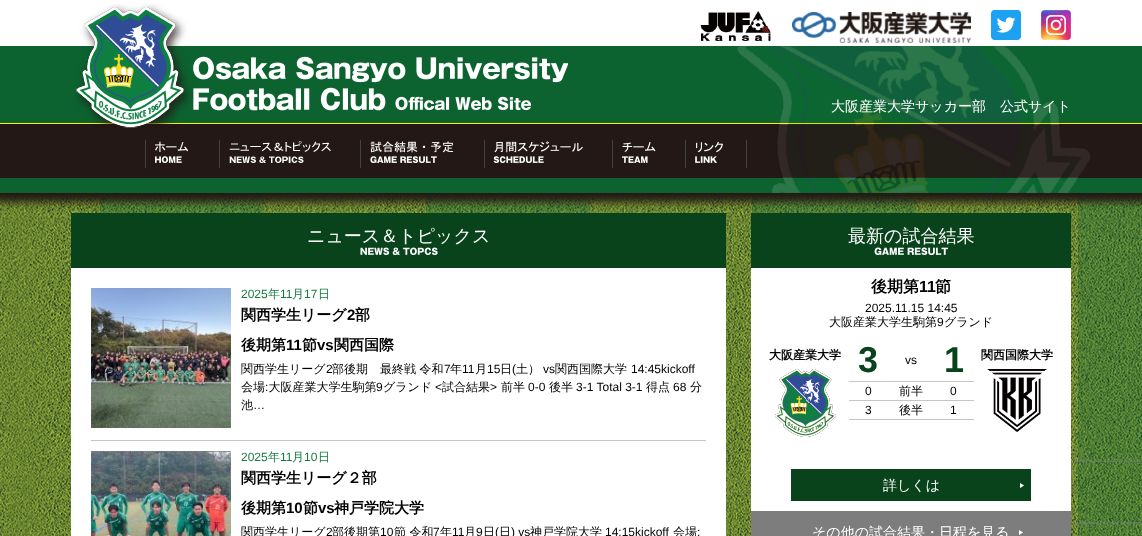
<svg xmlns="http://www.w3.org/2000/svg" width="1142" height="536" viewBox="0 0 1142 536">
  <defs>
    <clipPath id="clip1"><path d="M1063 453H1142V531H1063ZM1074 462H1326C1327 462 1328 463 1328 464V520C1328 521 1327 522 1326 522H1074C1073 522 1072 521 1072 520V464C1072 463 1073 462 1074 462Z" clip-rule="evenodd"/></clipPath>
    <filter id="blur1" x="-50%" y="-200%" width="200%" height="500%"><feGaussianBlur stdDeviation="2.5"/></filter>
  </defs>
  <rect width="100%" height="100%" fill="#ffffff"/>
  <rect x="0" y="46" width="1142" height="77" fill="#0c6330"/>
  <image x="0" y="123" width="1142" height="70" href="img7.png"/>
  <image x="75" y="4" width="494" height="124" href="img1.png"/>
  <image x="700" y="11" width="72" height="30" href="img2.png"/>
  <image x="792" y="12" width="179" height="31" href="img3.png"/>
  <image x="991" y="10" width="30" height="30" href="img4.png"/>
  <image x="1041" y="10" width="30" height="30" href="img5.png"/>
  <image x="737" y="46" width="354" height="147" href="img6.png"/>
  <text x="831" y="111" font-family="WenQuanYi Zen Hei" font-size="14" font-weight="500" fill="#ffffff">大阪産業大学サッカー部　公式サイト</text>
  <image x="145" y="140" width="75" height="28" href="img8.png"/>
  <image x="229" y="140" width="132" height="28" href="img9.png"/>
  <image x="370" y="140" width="115" height="28" href="img10.png"/>
  <image x="493" y="140" width="120" height="28" href="img11.png"/>
  <image x="622" y="140" width="64" height="28" href="img12.png"/>
  <image x="695" y="140" width="52" height="28" href="img13.png"/>
  <image x="0" y="193" width="1142" height="343" href="img15.png"/>
  <image x="0" y="193" width="1142" height="17" href="img14.png"/>
  <rect x="71" y="268" width="655" height="268" fill="#ffffff"/>
  <rect x="71" y="213" width="655" height="55" fill="#08431b"/>
  <image x="360" y="247" width="78" height="8" href="img16.png"/>
  <text x="307" y="242" font-family="WenQuanYi Zen Hei" font-size="18" font-weight="500" fill="#ffffff">ニュース＆トピックス</text>
  <rect x="91" y="440" width="615" height="1" fill="#c8c5c4"/>
  <image x="91" y="288" width="140" height="140" href="img17.png"/>
  <text x="241" y="298" font-family="Liberation Sans" font-size="12" fill="#147b3f">2025</text>
  <text x="268" y="298" font-family="WenQuanYi Zen Hei" font-size="12" font-weight="500" fill="#147b3f">年</text>
  <text x="280" y="298" font-family="Liberation Sans" font-size="12" fill="#147b3f">11</text>
  <text x="292" y="298" font-family="WenQuanYi Zen Hei" font-size="12" font-weight="500" fill="#147b3f">月</text>
  <text x="304" y="298" font-family="Liberation Sans" font-size="12" fill="#147b3f">17</text>
  <text x="318" y="298" font-family="WenQuanYi Zen Hei" font-size="12" font-weight="500" fill="#147b3f">日</text>
  <text x="241" y="320" font-family="WenQuanYi Zen Hei" font-size="15" font-weight="bold" fill="#000000">関西学生リーグ</text>
  <text x="347" y="320" font-family="Liberation Sans" font-size="15" font-weight="bold" fill="#000000">2</text>
  <text x="355" y="320" font-family="WenQuanYi Zen Hei" font-size="15" font-weight="bold" fill="#000000">部</text>
  <text x="241" y="350" font-family="WenQuanYi Zen Hei" font-size="15" font-weight="bold" fill="#000000">後期第</text>
  <text x="286" y="350" font-family="Liberation Sans" font-size="15" font-weight="bold" fill="#000000">11</text>
  <text x="302" y="350" font-family="WenQuanYi Zen Hei" font-size="15" font-weight="bold" fill="#000000">節</text>
  <text x="317" y="350" font-family="Liberation Sans" font-size="15" font-weight="bold" fill="#000000">vs</text>
  <text x="334" y="350" font-family="WenQuanYi Zen Hei" font-size="15" font-weight="bold" fill="#000000">関西国際</text>
  <text x="241" y="373" font-family="WenQuanYi Zen Hei" font-size="12" font-weight="500" fill="#000000">関西学生リーグ</text>
  <text x="326" y="373" font-family="Liberation Sans" font-size="12" fill="#000000">2</text>
  <text x="332" y="373" font-family="WenQuanYi Zen Hei" font-size="12" font-weight="500" fill="#000000">部後期　最終戦 令和</text>
  <text x="444" y="373" font-family="Liberation Sans" font-size="12" fill="#000000">7</text>
  <text x="450" y="373" font-family="WenQuanYi Zen Hei" font-size="12" font-weight="500" fill="#000000">年</text>
  <text x="462" y="373" font-family="Liberation Sans" font-size="12" fill="#000000">11</text>
  <text x="475" y="373" font-family="WenQuanYi Zen Hei" font-size="12" font-weight="500" fill="#000000">月</text>
  <text x="487" y="373" font-family="Liberation Sans" font-size="12" fill="#000000">15</text>
  <text x="500" y="373" font-family="WenQuanYi Zen Hei" font-size="12" font-weight="500" fill="#000000">日</text>
  <text x="512" y="373" font-family="Liberation Sans" font-size="12" fill="#000000">(</text>
  <text x="516" y="373" font-family="WenQuanYi Zen Hei" font-size="12" font-weight="500" fill="#000000">土）</text>
  <text x="543" y="373" font-family="Liberation Sans" font-size="12" fill="#000000">vs</text>
  <text x="555" y="373" font-family="WenQuanYi Zen Hei" font-size="12" font-weight="500" fill="#000000">関西国際大学</text>
  <text x="631" y="373" font-family="Liberation Sans" font-size="12" fill="#000000">14:45kickoff</text>
  <text x="241" y="391" font-family="WenQuanYi Zen Hei" font-size="12" font-weight="500" fill="#000000">会場 大阪産業大学生駒第</text>
  <text x="376" y="391" font-family="Liberation Sans" font-size="12" fill="#000000">9</text>
  <text x="383" y="391" font-family="WenQuanYi Zen Hei" font-size="12" font-weight="500" fill="#000000">グランド</text>
  <text x="442" y="391" font-family="WenQuanYi Zen Hei" font-size="12" font-weight="500" fill="#000000">試合結果</text>
  <text x="501" y="391" font-family="WenQuanYi Zen Hei" font-size="12" font-weight="500" fill="#000000">前半</text>
  <text x="528" y="391" font-family="Liberation Sans" font-size="12" fill="#000000">0-0</text>
  <text x="549" y="391" font-family="WenQuanYi Zen Hei" font-size="12" font-weight="500" fill="#000000">後半</text>
  <text x="576" y="391" font-family="Liberation Sans" font-size="12" fill="#000000">3-1 Total 3-1</text>
  <text x="646" y="391" font-family="WenQuanYi Zen Hei" font-size="12" font-weight="500" fill="#000000">得点</text>
  <text x="673" y="391" font-family="Liberation Sans" font-size="12" fill="#000000">68</text>
  <text x="690" y="391" font-family="WenQuanYi Zen Hei" font-size="12" font-weight="500" fill="#000000">分</text>
  <text x="265" y="391" font-family="Liberation Sans" font-size="12" fill="#000000">:</text>
  <text x="435" y="391" font-family="Liberation Sans" font-size="12" fill="#000000">&lt;</text>
  <text x="490" y="391" font-family="Liberation Sans" font-size="12" fill="#000000">&gt;</text>
  <text x="241" y="409" font-family="WenQuanYi Zen Hei" font-size="12" font-weight="500" fill="#000000">池</text>
  <text x="253" y="409" font-family="Liberation Sans" font-size="12" fill="#000000">…</text>
  <image x="91" y="451" width="140" height="85" href="img18.png"/>
  <text x="241" y="461" font-family="Liberation Sans" font-size="12" fill="#147b3f">2025</text>
  <text x="268" y="461" font-family="WenQuanYi Zen Hei" font-size="12" font-weight="500" fill="#147b3f">年</text>
  <text x="280" y="461" font-family="Liberation Sans" font-size="12" fill="#147b3f">11</text>
  <text x="292" y="461" font-family="WenQuanYi Zen Hei" font-size="12" font-weight="500" fill="#147b3f">月</text>
  <text x="304" y="461" font-family="Liberation Sans" font-size="12" fill="#147b3f">10</text>
  <text x="318" y="461" font-family="WenQuanYi Zen Hei" font-size="12" font-weight="500" fill="#147b3f">日</text>
  <text x="241" y="483" font-family="WenQuanYi Zen Hei" font-size="15" font-weight="bold" fill="#000000">関西学生リーグ２部</text>
  <text x="241" y="513" font-family="WenQuanYi Zen Hei" font-size="15" font-weight="bold" fill="#000000">後期第</text>
  <text x="286" y="513" font-family="Liberation Sans" font-size="15" font-weight="bold" fill="#000000">10</text>
  <text x="303" y="513" font-family="WenQuanYi Zen Hei" font-size="15" font-weight="bold" fill="#000000">節</text>
  <text x="318" y="513" font-family="Liberation Sans" font-size="15" font-weight="bold" fill="#000000">vs</text>
  <text x="334" y="513" font-family="WenQuanYi Zen Hei" font-size="15" font-weight="bold" fill="#000000">神戸学院大学</text>
  <text x="241" y="536" font-family="WenQuanYi Zen Hei" font-size="12" font-weight="500" fill="#000000">関西学生リーグ</text>
  <text x="326" y="536" font-family="Liberation Sans" font-size="12" fill="#000000">2</text>
  <text x="332" y="536" font-family="WenQuanYi Zen Hei" font-size="12" font-weight="500" fill="#000000">部後期第</text>
  <text x="380" y="536" font-family="Liberation Sans" font-size="12" fill="#000000">10</text>
  <text x="394" y="536" font-family="WenQuanYi Zen Hei" font-size="12" font-weight="500" fill="#000000">節 令和</text>
  <text x="433" y="536" font-family="Liberation Sans" font-size="12" fill="#000000">7</text>
  <text x="440" y="536" font-family="WenQuanYi Zen Hei" font-size="12" font-weight="500" fill="#000000">年</text>
  <text x="452" y="536" font-family="Liberation Sans" font-size="12" fill="#000000">11</text>
  <text x="464" y="536" font-family="WenQuanYi Zen Hei" font-size="12" font-weight="500" fill="#000000">月</text>
  <text x="476" y="536" font-family="Liberation Sans" font-size="12" fill="#000000">9</text>
  <text x="483" y="536" font-family="WenQuanYi Zen Hei" font-size="12" font-weight="500" fill="#000000">日</text>
  <text x="495" y="536" font-family="Liberation Sans" font-size="12" fill="#000000">(</text>
  <text x="499" y="536" font-family="WenQuanYi Zen Hei" font-size="12" font-weight="500" fill="#000000">日</text>
  <text x="511" y="536" font-family="Liberation Sans" font-size="12" fill="#000000">) vs</text>
  <text x="530" y="536" font-family="WenQuanYi Zen Hei" font-size="12" font-weight="500" fill="#000000">神戸学院大学</text>
  <text x="605" y="536" font-family="Liberation Sans" font-size="12" fill="#000000">14:15kickoff</text>
  <text x="673" y="536" font-family="WenQuanYi Zen Hei" font-size="12" font-weight="500" fill="#000000">会場</text>
  <text x="697" y="536" font-family="Liberation Sans" font-size="12" fill="#000000">:</text>
  <g clip-path="url(#clip1)">
    <rect x="1072" y="462" width="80" height="60" rx="2" fill="#808080" filter="url(#blur1)"/>
  </g>
  <rect x="751" y="268" width="320" height="243" fill="#ffffff"/>
  <rect x="751" y="213" width="320" height="55" fill="#08431b"/>
  <image x="874" y="247" width="74" height="8" href="img19.png"/>
  <text x="848" y="242" font-family="WenQuanYi Zen Hei" font-size="18" font-weight="500" fill="#ffffff">最新の試合結果</text>
  <text x="871" y="292" font-family="WenQuanYi Zen Hei" font-size="16" font-weight="bold" fill="#000000">後期第</text>
  <text x="919" y="292" font-family="Liberation Sans" font-size="16" font-weight="bold" fill="#000000">11</text>
  <text x="935" y="292" font-family="WenQuanYi Zen Hei" font-size="16" font-weight="bold" fill="#000000">節</text>
  <text x="865" y="312" font-family="Liberation Sans" font-size="12" fill="#000000">2025.11.15 14:45</text>
  <text x="829" y="326" font-family="WenQuanYi Zen Hei" font-size="12" font-weight="500" fill="#000000">大阪産業大学生駒第</text>
  <text x="937" y="326" font-family="Liberation Sans" font-size="12" fill="#000000">9</text>
  <text x="944" y="326" font-family="WenQuanYi Zen Hei" font-size="12" font-weight="500" fill="#000000">グランド</text>
  <image x="775" y="369" width="61" height="68" href="img20.png"/>
  <text x="769" y="359" font-family="WenQuanYi Zen Hei" font-size="12" font-weight="bold" fill="#000000">大阪産業大学</text>
  <text x="858" y="372" font-family="Liberation Sans" font-size="36" font-weight="bold" fill="#08431b">3</text>
  <text x="905" y="364" font-family="Liberation Sans" font-size="12" fill="#000000">vs</text>
  <rect x="849" y="381" width="125" height="1" fill="#c8c5c4"/>
  <text x="944" y="372" font-family="Liberation Sans" font-size="36" font-weight="bold" fill="#08431b">1</text>
  <text x="865" y="395" font-family="Liberation Sans" font-size="12" fill="#000000">0</text>
  <text x="899" y="395" font-family="WenQuanYi Zen Hei" font-size="12" font-weight="500" fill="#000000">前半</text>
  <rect x="849" y="400" width="125" height="1" fill="#c8c5c4"/>
  <text x="950" y="395" font-family="Liberation Sans" font-size="12" fill="#000000">0</text>
  <text x="865" y="414" font-family="Liberation Sans" font-size="12" fill="#000000">3</text>
  <text x="899" y="414" font-family="WenQuanYi Zen Hei" font-size="12" font-weight="500" fill="#000000">後半</text>
  <rect x="849" y="419" width="125" height="1" fill="#c8c5c4"/>
  <text x="950" y="414" font-family="Liberation Sans" font-size="12" fill="#000000">1</text>
  <image x="987" y="369" width="60" height="63" href="img21.png"/>
  <text x="981" y="359" font-family="WenQuanYi Zen Hei" font-size="12" font-weight="bold" fill="#000000">関西国際大学</text>
  <rect x="791" y="469" width="240" height="32" fill="#08431b"/>
  <image x="1020" y="483" width="4" height="5" href="img22.png"/>
  <text x="883" y="490" font-family="WenQuanYi Zen Hei" font-size="14" font-weight="500" fill="#ffffff">詳しくは</text>
  <rect x="751" y="511" width="320" height="25" fill="#7d7d7d"/>
  <image x="1019" y="530" width="4" height="5" href="img23.png"/>
  <text x="812" y="537" font-family="WenQuanYi Zen Hei" font-size="14" font-weight="500" fill="#ffffff">その他の試合結果・日程を見る</text>
</svg>
